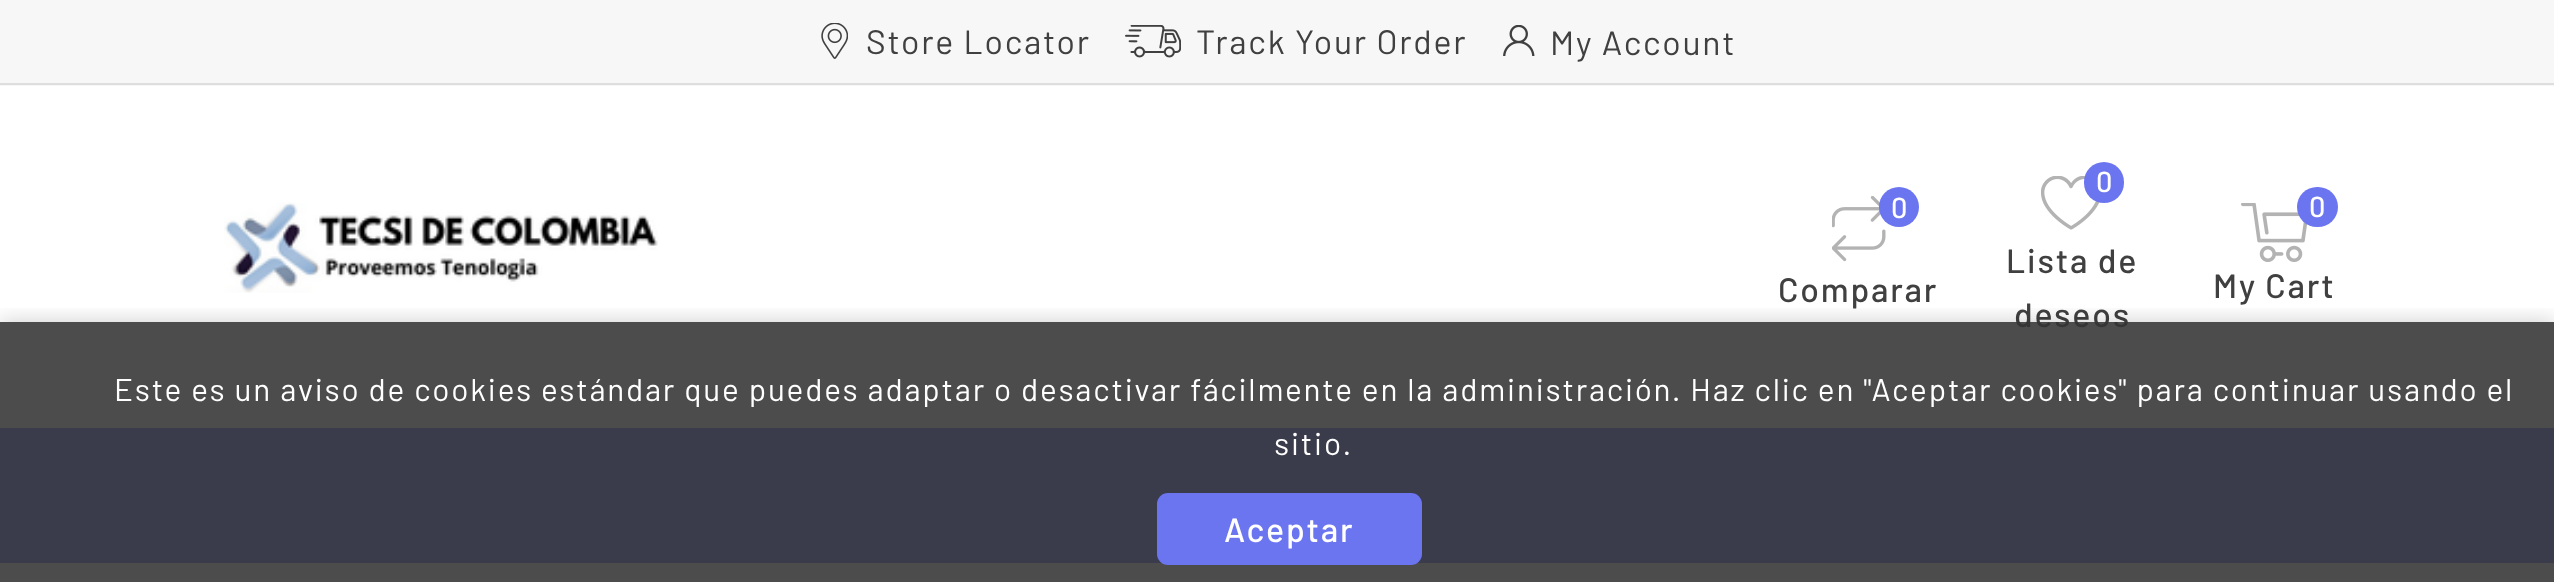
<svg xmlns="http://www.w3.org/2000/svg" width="2554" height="582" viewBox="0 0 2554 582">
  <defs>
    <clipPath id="clip1"><rect x="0" y="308" width="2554" height="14"/></clipPath>
    <filter id="blur1" x="-50%" y="-200%" width="200%" height="500%"><feGaussianBlur stdDeviation="11"/></filter>
  </defs>
  <rect width="100%" height="100%" fill="#ffffff"/>
  <rect x="0" y="0" width="2554" height="86" fill="#f7f7f7"/>
  <image x="821" y="23" width="27" height="36" href="img1.png"/>
  <text x="866" y="54" font-family="Barlow" font-size="33.75" letter-spacing="1.8" fill="#404040">Store Locator</text>
  <image x="1125" y="25" width="56" height="33" href="img2.png"/>
  <text x="1196" y="54" font-family="Barlow" font-size="33.75" letter-spacing="1.8" fill="#404040">Track Your Order</text>
  <image x="1503" y="25" width="32" height="31" href="img3.png"/>
  <text x="1550" y="55" font-family="Barlow" font-size="33.75" letter-spacing="1.8" fill="#404040">My Account</text>
  <rect x="0" y="83" width="2554" height="2" fill="#dedede"/>
  <image x="224" y="202" width="434" height="91" href="img4.png"/>
  <image x="1832" y="196" width="54" height="66" href="img5.png"/>
  <circle cx="1899" cy="207" r="20" fill="#6c75f0"/>
  <text x="1891" y="218" font-family="Barlow" font-size="29" font-weight="500" letter-spacing="1.8" fill="#ffffff">0</text>
  <text x="1778" y="302" font-family="Barlow" font-size="33.75" font-weight="500" letter-spacing="1.8" fill="#404040">Comparar</text>
  <image x="2041" y="176" width="59" height="54" href="img6.png"/>
  <rect x="2084" y="162" width="40" height="41" rx="20" fill="#6c75f0"/>
  <text x="2096" y="192" font-family="Barlow" font-size="29" font-weight="500" letter-spacing="1.8" fill="#ffffff">0</text>
  <text x="2006" y="273" font-family="Barlow" font-size="33.75" font-weight="500" letter-spacing="1.8" fill="#404040">Lista de</text>
  <text x="2014" y="327" font-family="Barlow" font-size="33.75" font-weight="500" letter-spacing="1.8" fill="#404040">deseos</text>
  <image x="2241" y="203" width="67" height="59" href="img7.png"/>
  <rect x="2297" y="187" width="41" height="40" rx="20" fill="#6c75f0"/>
  <text x="2309" y="217" font-family="Barlow" font-size="29" font-weight="500" letter-spacing="1.8" fill="#ffffff">0</text>
  <text x="2213" y="298" font-family="Barlow" font-size="33.75" font-weight="500" letter-spacing="1.8" fill="#404040">My Cart</text>
  <rect x="0" y="428" width="2554" height="135" fill="#6c75f0"/>
  <g clip-path="url(#clip1)">
    <rect x="0" y="322" width="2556" height="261" fill="#000000" fill-opacity="0.2" filter="url(#blur1)"/>
  </g>
  <rect x="0" y="322" width="2554" height="260" fill="#333333" fill-opacity="0.88"/>
  <text x="114" y="401" font-family="Barlow" font-size="31.5" letter-spacing="1.8" fill="#ffffff">Este es un aviso de cookies estándar que puedes adaptar o desactivar fácilmente en la administración. Haz clic en "Aceptar cookies" para continuar usando el</text>
  <text x="1274" y="455" font-family="Barlow" font-size="31.5" letter-spacing="1.8" fill="#ffffff">sitio.</text>
  <rect x="1157" y="493" width="265" height="72" rx="11" fill="#6c75f0"/>
  <text x="1224" y="542" font-family="Barlow" font-size="33.75" font-weight="500" letter-spacing="1.8" fill="#ffffff">Aceptar</text>
</svg>
